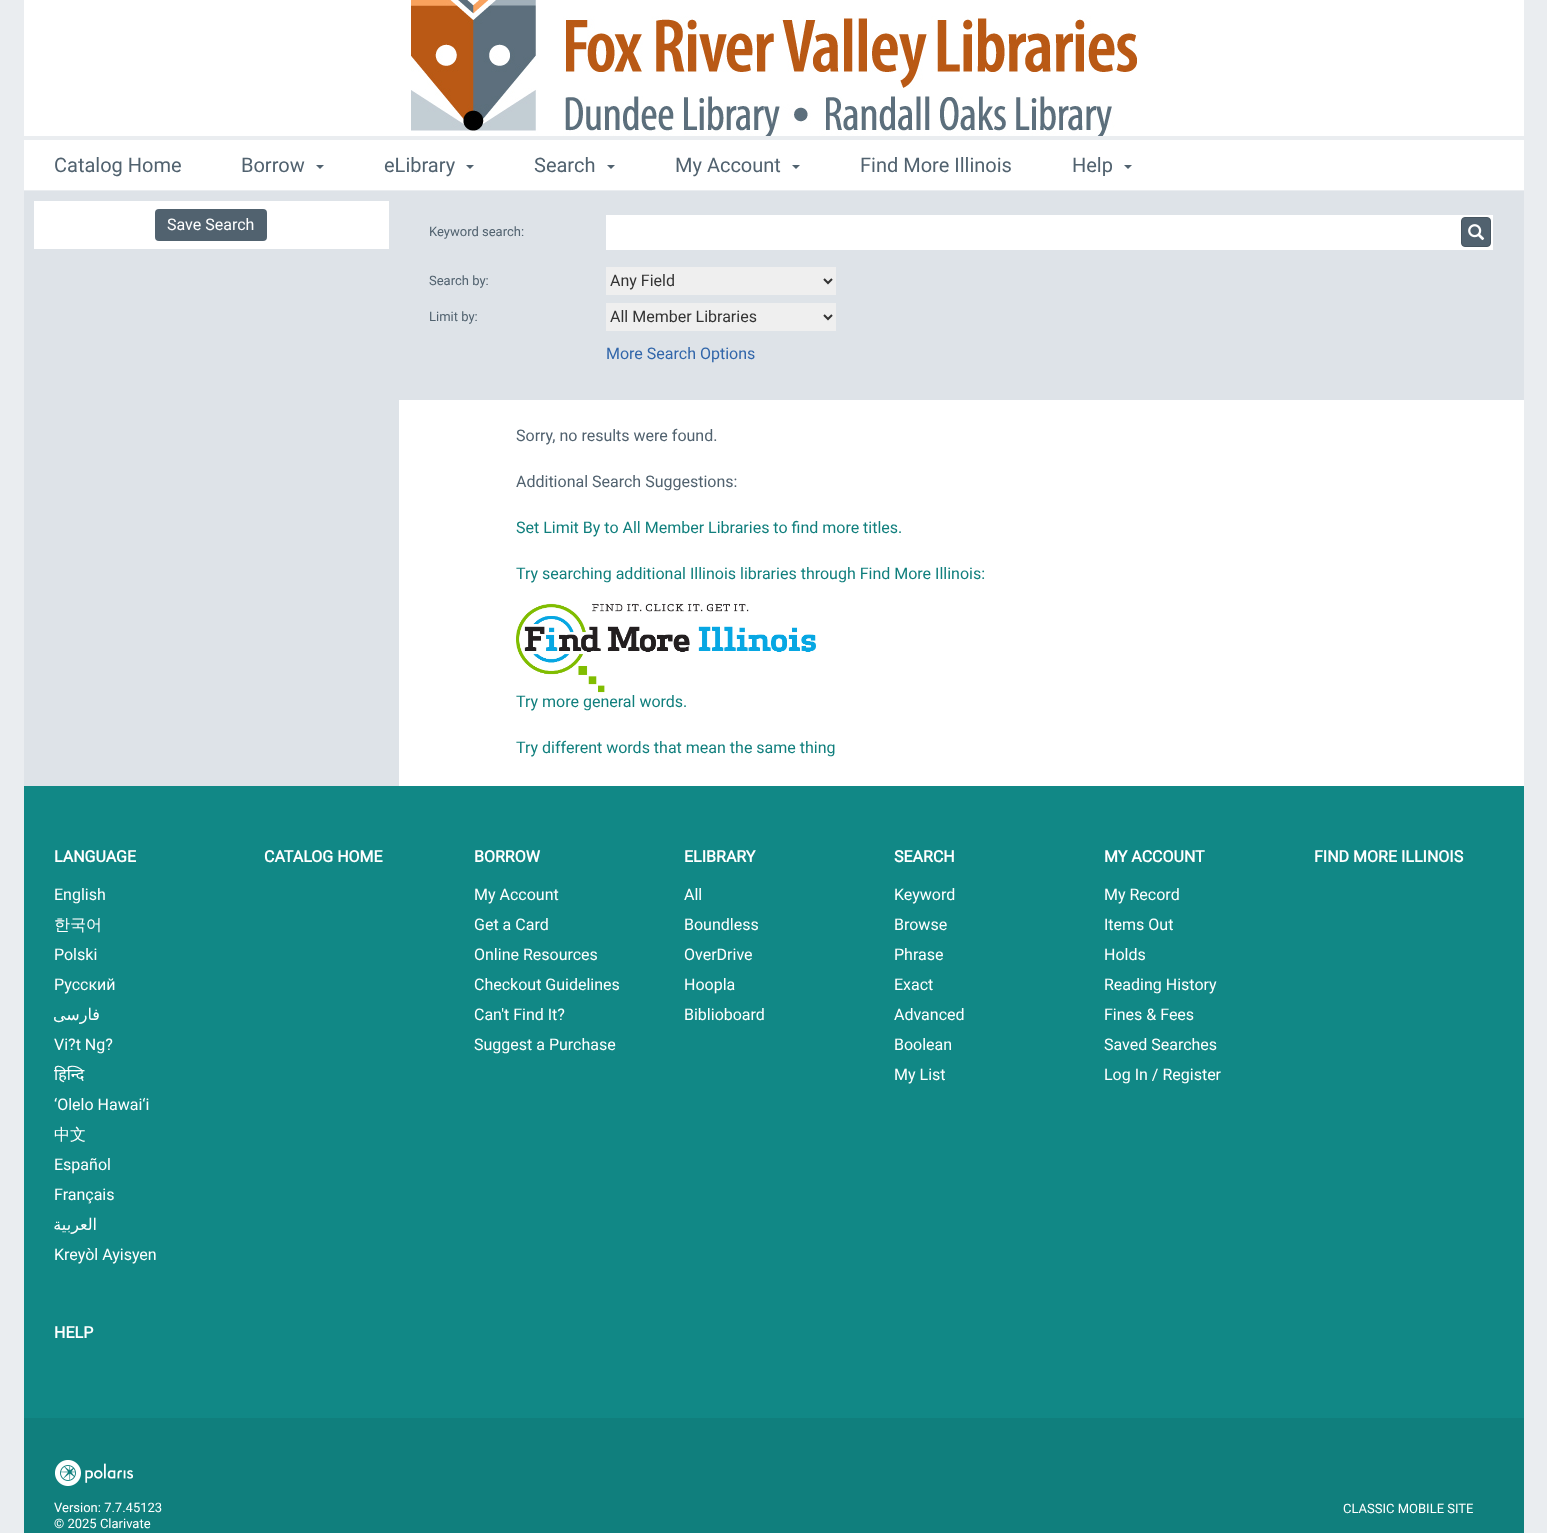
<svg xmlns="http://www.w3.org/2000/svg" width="1547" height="1533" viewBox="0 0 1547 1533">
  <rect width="100%" height="100%" fill="#eaedf0"/>
  <rect x="24" y="0" width="1500" height="136" fill="#ffffff"/>
  <image x="411" y="0" width="726" height="136" href="img1.png"/>
  <rect x="24" y="140" width="1500" height="50" fill="#ffffff"/>
  <text x="54" y="172" font-family="Roboto" font-size="20" fill="#51626f">Catalog Home</text>
  <text x="241" y="172" font-family="Roboto" font-size="20" fill="#51626f">Borrow</text>
  <path d="M316 165H324L320 169Z" fill="#51626f"/>
  <text x="384" y="172" font-family="Roboto" font-size="20" fill="#51626f">eLibrary</text>
  <path d="M466 165H474L470 169Z" fill="#51626f"/>
  <text x="534" y="172" font-family="Roboto" font-size="20" fill="#51626f">Search</text>
  <path d="M607 165H615L611 169Z" fill="#51626f"/>
  <text x="675" y="172" font-family="Roboto" font-size="20" fill="#51626f">My Account</text>
  <path d="M792 165H800L796 169Z" fill="#51626f"/>
  <text x="860" y="172" font-family="Roboto" font-size="20" fill="#51626f">Find More Illinois</text>
  <text x="1072" y="172" font-family="Roboto" font-size="20" fill="#51626f">Help</text>
  <path d="M1124 165H1132L1128 169Z" fill="#51626f"/>
  <rect x="24" y="191" width="375" height="595" fill="#dee3e8"/>
  <rect x="34" y="201" width="355" height="48" fill="#ffffff"/>
  <rect x="155" y="209" width="112" height="32" rx="4" fill="#51626f"/>
  <text x="167" y="230" font-family="Roboto" font-size="16" fill="#ffffff">Save Search</text>
  <rect x="399" y="400" width="1125" height="386" fill="#ffffff"/>
  <rect x="399" y="191" width="1125" height="209" fill="#dee3e8"/>
  <text x="429" y="236" font-family="Roboto" font-size="13" fill="#51626f">Keyword search:</text>
  <rect x="606" y="215" width="887" height="35" fill="#ffffff"/>
  <rect x="1461.5" y="217.5" width="29" height="29" rx="3.5" fill="#51626f" stroke="#465560"/>
  <image x="1468" y="224" width="17" height="17" href="img2.png"/>
  <text x="429" y="285" font-family="Roboto" font-size="13" fill="#51626f">Search by:</text>
  <rect x="606" y="267" width="230" height="28" fill="#efefef"/>
  <path d="M824 279L828 283L832 279" fill="none" stroke="#333333" stroke-width="2"/>
  <text x="610" y="286" font-family="Roboto" font-size="16" fill="#333333">Any Field</text>
  <text x="429" y="321" font-family="Roboto" font-size="13" fill="#51626f">Limit by:</text>
  <rect x="606" y="303" width="230" height="28" fill="#efefef"/>
  <path d="M824 315L828 319L832 315" fill="none" stroke="#333333" stroke-width="2"/>
  <text x="610" y="322" font-family="Roboto" font-size="16" fill="#333333">All Member Libraries</text>
  <text x="606" y="359" font-family="Roboto" font-size="16" fill="#3166aa">More Search Options</text>
  <text x="516" y="441" font-family="Roboto" font-size="16" fill="#51626f">Sorry, no results were found.</text>
  <text x="516" y="487" font-family="Roboto" font-size="16" fill="#51626f">Additional Search Suggestions:</text>
  <text x="516" y="533" font-family="Roboto" font-size="16" fill="#107f7d">Set Limit By to All Member Libraries to find more titles.</text>
  <text x="516" y="579" font-family="Roboto" font-size="16" fill="#107f7d">Try searching additional Illinois libraries through Find More Illinois:</text>
  <image x="516" y="603" width="300" height="90" href="img3.png"/>
  <text x="516" y="707" font-family="Roboto" font-size="16" fill="#107f7d">Try more general words.</text>
  <text x="516" y="753" font-family="Roboto" font-size="16" fill="#107f7d">Try different words that mean the same thing</text>
  <rect x="24" y="786" width="1500" height="632" fill="#118886"/>
  <text x="54" y="862" font-family="Roboto" font-size="16" font-weight="bold" fill="#ffffff">LANGUAGE</text>
  <text x="54" y="900" font-family="Roboto" font-size="16" fill="#ffffff">English</text>
  <text x="54" y="930" font-family="WenQuanYi Zen Hei" font-size="16" font-weight="500" fill="#ffffff">한국어</text>
  <text x="54" y="960" font-family="Roboto" font-size="16" fill="#ffffff">Polski</text>
  <text x="54" y="990" font-family="Roboto" font-size="16" fill="#ffffff">Русский</text>
  <text x="100" y="1020" font-family="DejaVu Sans" font-size="16" direction="rtl" fill="#ffffff">فارسی</text>
  <text x="54" y="1050" font-family="Roboto" font-size="16" fill="#ffffff">Vi?t Ng?</text>
  <text x="54" y="1080" font-family="Noto Sans" font-size="16" fill="#ffffff">हिन्दि</text>
  <text x="54" y="1110" font-family="Roboto" font-size="16" fill="#ffffff">‘Olelo Hawai‘i</text>
  <text x="54" y="1140" font-family="WenQuanYi Zen Hei" font-size="16" font-weight="500" fill="#ffffff">中文</text>
  <text x="54" y="1170" font-family="Roboto" font-size="16" fill="#ffffff">Español</text>
  <text x="54" y="1200" font-family="Roboto" font-size="16" fill="#ffffff">Français</text>
  <text x="97" y="1230" font-family="DejaVu Sans" font-size="16" direction="rtl" fill="#ffffff">العربية</text>
  <text x="54" y="1260" font-family="Roboto" font-size="16" fill="#ffffff">Kreyòl Ayisyen</text>
  <text x="264" y="862" font-family="Roboto" font-size="16" font-weight="bold" fill="#ffffff">CATALOG HOME</text>
  <text x="474" y="862" font-family="Roboto" font-size="16" font-weight="bold" fill="#ffffff">BORROW</text>
  <text x="474" y="900" font-family="Roboto" font-size="16" fill="#ffffff">My Account</text>
  <text x="474" y="930" font-family="Roboto" font-size="16" fill="#ffffff">Get a Card</text>
  <text x="474" y="960" font-family="Roboto" font-size="16" fill="#ffffff">Online Resources</text>
  <text x="474" y="990" font-family="Roboto" font-size="16" fill="#ffffff">Checkout Guidelines</text>
  <text x="474" y="1020" font-family="Roboto" font-size="16" fill="#ffffff">Can't Find It?</text>
  <text x="474" y="1050" font-family="Roboto" font-size="16" fill="#ffffff">Suggest a Purchase</text>
  <text x="684" y="862" font-family="Roboto" font-size="16" font-weight="bold" fill="#ffffff">ELIBRARY</text>
  <text x="684" y="900" font-family="Roboto" font-size="16" fill="#ffffff">All</text>
  <text x="684" y="930" font-family="Roboto" font-size="16" fill="#ffffff">Boundless</text>
  <text x="684" y="960" font-family="Roboto" font-size="16" fill="#ffffff">OverDrive</text>
  <text x="684" y="990" font-family="Roboto" font-size="16" fill="#ffffff">Hoopla</text>
  <text x="684" y="1020" font-family="Roboto" font-size="16" fill="#ffffff">Biblioboard</text>
  <text x="894" y="862" font-family="Roboto" font-size="16" font-weight="bold" fill="#ffffff">SEARCH</text>
  <text x="894" y="900" font-family="Roboto" font-size="16" fill="#ffffff">Keyword</text>
  <text x="894" y="930" font-family="Roboto" font-size="16" fill="#ffffff">Browse</text>
  <text x="894" y="960" font-family="Roboto" font-size="16" fill="#ffffff">Phrase</text>
  <text x="894" y="990" font-family="Roboto" font-size="16" fill="#ffffff">Exact</text>
  <text x="894" y="1020" font-family="Roboto" font-size="16" fill="#ffffff">Advanced</text>
  <text x="894" y="1050" font-family="Roboto" font-size="16" fill="#ffffff">Boolean</text>
  <text x="894" y="1080" font-family="Roboto" font-size="16" fill="#ffffff">My List</text>
  <text x="1104" y="862" font-family="Roboto" font-size="16" font-weight="bold" fill="#ffffff">MY ACCOUNT</text>
  <text x="1104" y="900" font-family="Roboto" font-size="16" fill="#ffffff">My Record</text>
  <text x="1104" y="930" font-family="Roboto" font-size="16" fill="#ffffff">Items Out</text>
  <text x="1104" y="960" font-family="Roboto" font-size="16" fill="#ffffff">Holds</text>
  <text x="1104" y="990" font-family="Roboto" font-size="16" fill="#ffffff">Reading History</text>
  <text x="1104" y="1020" font-family="Roboto" font-size="16" fill="#ffffff">Fines &amp; Fees</text>
  <text x="1104" y="1050" font-family="Roboto" font-size="16" fill="#ffffff">Saved Searches</text>
  <text x="1104" y="1080" font-family="Roboto" font-size="16" fill="#ffffff">Log In / Register</text>
  <text x="1314" y="862" font-family="Roboto" font-size="16" font-weight="bold" fill="#ffffff">FIND MORE ILLINOIS</text>
  <text x="54" y="1338" font-family="Roboto" font-size="16" font-weight="bold" fill="#ffffff">HELP</text>
  <rect x="24" y="1418" width="1500" height="115" fill="#107f7d"/>
  <image x="55" y="1460" width="78" height="26" href="img4.png"/>
  <text x="54" y="1512" font-family="Roboto" font-size="13" fill="#ffffff">Version: 7.7.45123</text>
  <text x="54" y="1528" font-family="Roboto" font-size="13" fill="#ffffff">© 2025 Clarivate</text>
  <text x="1343" y="1513" font-family="Roboto" font-size="13" fill="#ffffff">CLASSIC MOBILE SITE</text>
</svg>
